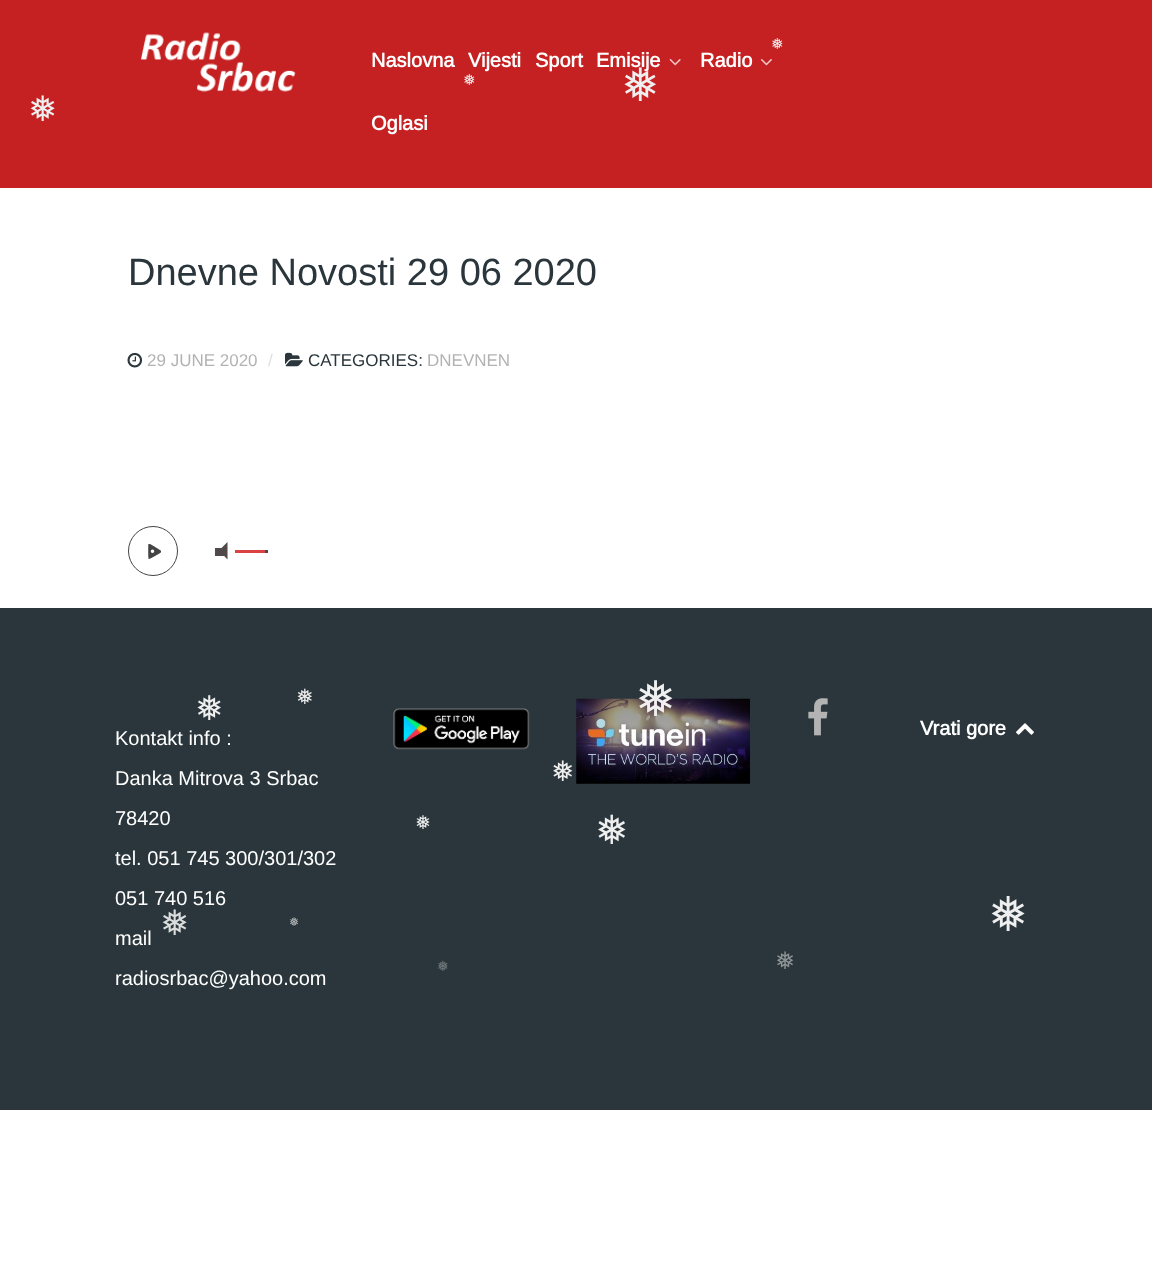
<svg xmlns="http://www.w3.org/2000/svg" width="1152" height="1283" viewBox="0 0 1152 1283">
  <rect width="100%" height="100%" fill="#ffffff"/>
  <rect x="0" y="0" width="1152" height="188" fill="#c52122"/>
  <text x="771" y="49" font-family="DejaVu Sans" font-size="15" fill="#efefef">❅</text>
  <text x="463" y="85" font-family="DejaVu Sans" font-size="15" fill="#efefef">❅</text>
  <text x="621" y="101" font-family="DejaVu Sans" font-size="46" fill="#efefef">❅</text>
  <text x="28" y="121" font-family="DejaVu Sans" font-size="35" fill="#efefef">❅</text>
  <rect x="0" y="608" width="1152" height="502" fill="#2a363b"/>
  <text x="195" y="720" font-family="DejaVu Sans" font-size="34" fill="#efefef">❅</text>
  <text x="296" y="704" font-family="DejaVu Sans" font-size="21" fill="#efefef">❅</text>
  <image x="576" y="698" width="174" height="86" href="img8.png"/>
  <text x="635" y="716" font-family="DejaVu Sans" font-size="49" fill="#efefef">❅</text>
  <text x="551" y="781" font-family="DejaVu Sans" font-size="28" fill="#efefef">❅</text>
  <text x="415" y="829" font-family="DejaVu Sans" font-size="19" fill="#efefef">❅</text>
  <text x="595" y="844" font-family="DejaVu Sans" font-size="40" fill="#efefef">❅</text>
  <text x="160" y="935" font-family="DejaVu Sans" font-size="35" fill="#dbdddd">❅</text>
  <text x="289" y="926" font-family="DejaVu Sans" font-size="12" fill="#babdbe">❅</text>
  <text x="988" y="931" font-family="DejaVu Sans" font-size="48" fill="#efefef">❅</text>
  <text x="437" y="971" font-family="DejaVu Sans" font-size="14" fill="#777e81">❅</text>
  <text x="775" y="969" font-family="DejaVu Sans" font-size="24" fill="#8e9497">❅</text>
  <image x="141" y="32" width="155" height="60" href="img1.png"/>
  <text x="371" y="67" font-family="Arimo" font-size="20" font-weight="bold" fill="#ffffff">Naslovna</text>
  <text x="468" y="67" font-family="Arimo" font-size="20" font-weight="bold" fill="#ffffff">Vijesti</text>
  <text x="535" y="67" font-family="Arimo" font-size="20" font-weight="bold" fill="#ffffff">Sport</text>
  <text x="596" y="67" font-family="Arimo" font-size="20" font-weight="bold" fill="#ffffff">Emisije</text>
  <image x="669" y="59" width="12" height="7" href="img2.png"/>
  <text x="700" y="67" font-family="Arimo" font-size="20" font-weight="bold" fill="#ffffff">Radio</text>
  <image x="760" y="59" width="12" height="7" href="img3.png"/>
  <text x="371" y="130" font-family="Arimo" font-size="20" font-weight="bold" fill="#ffffff">Oglasi</text>
  <text x="128" y="285" font-family="Arimo" font-size="38" fill="#2a363b">Dnevne Novosti 29 06 2020</text>
  <image x="127" y="352" width="16" height="16" href="img4.png"/>
  <text x="147" y="366" font-family="Arimo" font-size="17" fill="#b3b3b3">29 JUNE 2020</text>
  <text x="268" y="366" font-family="Arimo" font-size="17" fill="#e0e0e5">/</text>
  <image x="285" y="352" width="18" height="15" href="img5.png"/>
  <text x="308" y="366" font-family="Arimo" font-size="17" fill="#2a363b">CATEGORIES:</text>
  <text x="427" y="366" font-family="Arimo" font-size="17" fill="#b3b3b3">DNEVNEN</text>
  <circle cx="153" cy="551" r="24.5" fill="none" stroke="#444444"/>
  <image x="148" y="544" width="13" height="16" href="img6.png"/>
  <circle cx="152.5" cy="551.2" r="0.9" fill="none" stroke="#5d5d5d" stroke-width="1.7"/>
  <circle cx="152.5" cy="551.2" r="0.9" fill="none" stroke="#ffffff" stroke-opacity="0.98" stroke-width="1.7"/>
  <rect x="215" y="548" width="9" height="8" fill="#4f4949"/>
  <path d="M227.5 542V559.5L219 550.5Z" fill="#4f4949"/>
  <rect x="235" y="550" width="30" height="3" fill="#db4343"/>
  <rect x="265" y="550" width="3" height="3" fill="#4f4949"/>
  <text x="115" y="745" font-family="Arimo" font-size="20" fill="#ffffff">Kontakt info :</text>
  <text x="115" y="785" font-family="Arimo" font-size="20" fill="#ffffff">Danka Mitrova 3 Srbac</text>
  <text x="115" y="825" font-family="Arimo" font-size="20" fill="#ffffff">78420</text>
  <text x="115" y="865" font-family="Arimo" font-size="20" fill="#ffffff">tel. 051 745 300/301/302</text>
  <text x="115" y="905" font-family="Arimo" font-size="20" fill="#ffffff">051 740 516</text>
  <text x="115" y="945" font-family="Arimo" font-size="20" fill="#ffffff">mail</text>
  <text x="115" y="985" font-family="Arimo" font-size="20" fill="#ffffff">radiosrbac@yahoo.com</text>
  <image x="393" y="708" width="137" height="42" href="img7.png"/>
  <image x="808" y="698" width="20" height="38" href="img9.png"/>
  <text x="920" y="735" font-family="Arimo" font-size="20" font-weight="bold" fill="#ffffff">Vrati gore</text>
  <image x="1016" y="723" width="18" height="12" href="img10.png"/>
</svg>
